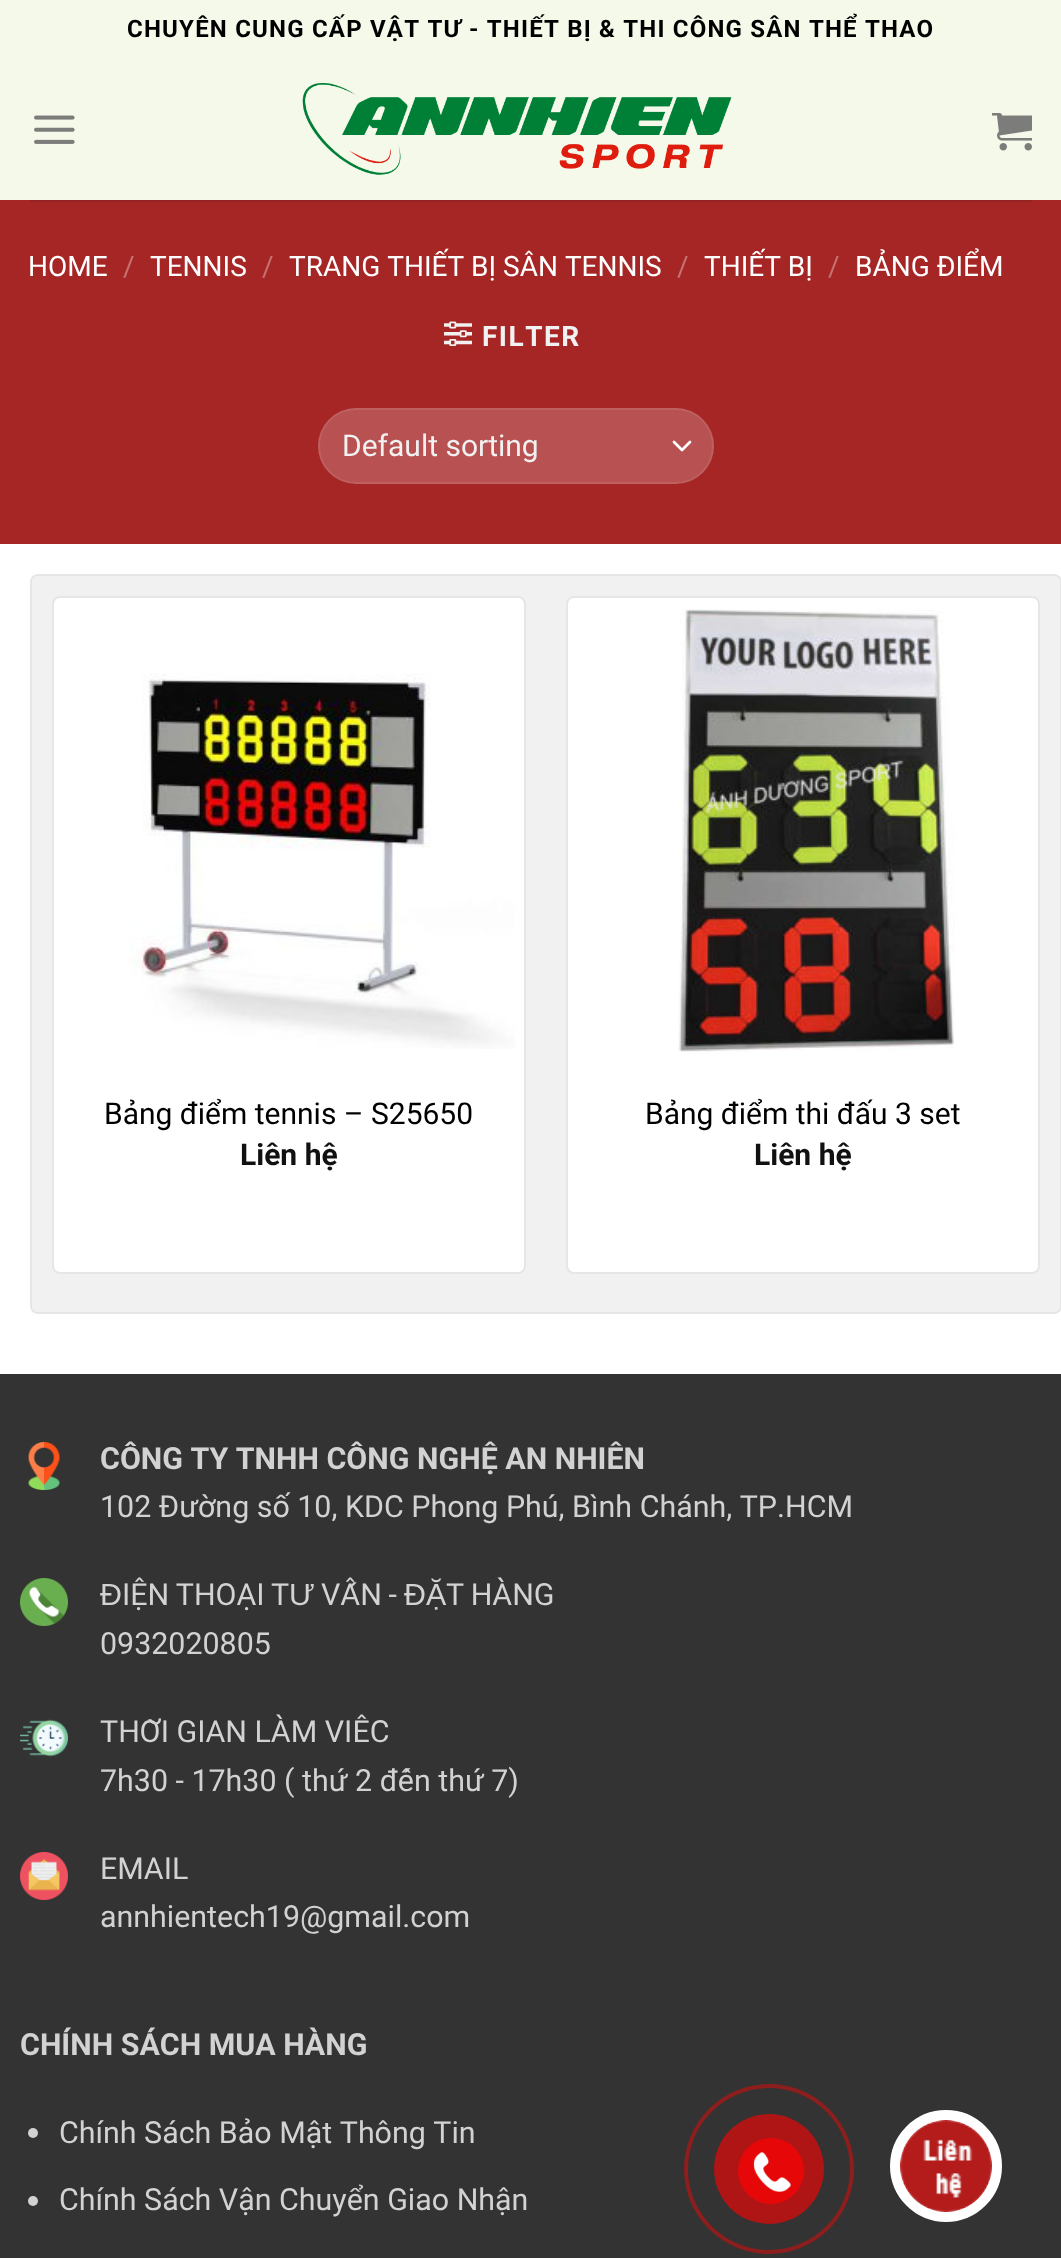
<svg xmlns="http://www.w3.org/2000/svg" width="1061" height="2258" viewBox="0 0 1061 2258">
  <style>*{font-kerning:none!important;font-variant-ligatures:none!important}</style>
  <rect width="100%" height="100%" fill="#ffffff"/>
  <rect x="0" y="0" width="1061" height="200" fill="#f5f9ea"/>
  <text x="127" y="37" font-family="Roboto" font-size="24" font-weight="bold" letter-spacing="1.2" fill="#000000">CHUYÊN CUNG CẤP VẬT TƯ - THIẾT BỊ &amp; THI CÔNG SÂN THỂ</text>
  <text x="865" y="37" font-family="Roboto" font-size="24" font-weight="bold" letter-spacing="1.2" fill="#000000">THAO</text>
  <image x="34" y="115" width="41" height="29" href="img1.png"/>
  <image x="302" y="83" width="430" height="92" href="img2.png"/>
  <image x="992" y="113" width="40" height="38" href="img3.png"/>
  <rect x="0" y="200" width="1061" height="344" fill="#a62626"/>
  <rect x="30" y="200" width="1002" height="2" fill="#952222"/>
  <text x="28" y="276" font-family="Roboto" font-size="28" fill="#ffffff">HOME</text>
  <text x="123" y="276" font-family="Roboto" font-size="28" fill="#c57272">/</text>
  <text x="150" y="276" font-family="Roboto" font-size="28" fill="#ffffff">TENNIS</text>
  <text x="262" y="276" font-family="Roboto" font-size="28" fill="#c57272">/</text>
  <text x="289" y="276" font-family="Roboto" font-size="28" fill="#ffffff">TRANG THIẾT BỊ SÂN TENNIS</text>
  <text x="677" y="276" font-family="Roboto" font-size="28" fill="#c57272">/</text>
  <text x="704" y="276" font-family="Roboto" font-size="28" fill="#ffffff">THIẾT BỊ</text>
  <text x="828" y="276" font-family="Roboto" font-size="28" fill="#c57272">/</text>
  <text x="855" y="276" font-family="Roboto" font-size="28" fill="#ffffff">BẢNG ĐIỂM</text>
  <image x="444" y="321" width="28" height="25" href="img4.png"/>
  <text x="482" y="346" font-family="Roboto" font-size="28" font-weight="bold" letter-spacing="1.5" fill="#f1f1f1">FILTER</text>
  <rect x="318" y="408" width="396" height="76" rx="38" fill="#b85151"/>
  <path d="M674 442L682 450L690 442" fill="none" stroke="#ffffff" stroke-width="2.7" stroke-linecap="round" stroke-linejoin="round"/>
  <rect x="319" y="409" width="394" height="74" rx="37" fill="none" stroke="#ffffff" stroke-opacity="0.09" stroke-width="2"/>
  <text x="342" y="456" font-family="Roboto" font-size="30" fill="#f1f1f1">Default sorting</text>
  <rect x="31" y="575" width="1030" height="738" rx="7" fill="#f1f1f1" stroke="#e6e6e6" stroke-width="2"/>
  <rect x="53" y="597" width="472" height="676" rx="7" fill="#ffffff" stroke="#e6e6e6" stroke-width="2"/>
  <image x="129" y="673" width="386" height="376" href="img5.png"/>
  <text x="104" y="1124" font-family="Roboto" font-size="30" fill="#000000">Bảng điểm tennis – S25650</text>
  <text x="240" y="1165" font-family="Roboto" font-size="30" font-weight="bold" fill="#111111">Liên hệ</text>
  <rect x="567" y="597" width="472" height="676" rx="7" fill="#ffffff" stroke="#e6e6e6" stroke-width="2"/>
  <image x="678" y="609" width="277" height="443" href="img6.png"/>
  <text x="645" y="1124" font-family="Roboto" font-size="30" fill="#000000">Bảng điểm thi đấu 3 set</text>
  <text x="754" y="1165" font-family="Roboto" font-size="30" font-weight="bold" fill="#111111">Liên hệ</text>
  <rect x="0" y="1374" width="1061" height="884" fill="#333333"/>
  <image x="27" y="1442" width="34" height="48" href="img7.png"/>
  <text x="100" y="1469" font-family="Roboto" font-size="30.4" font-weight="bold" fill="#d2d2d2">CÔNG TY TNHH CÔNG NGHỆ AN NHIÊN</text>
  <text x="100" y="1517" font-family="Roboto" font-size="30.4" fill="#d2d2d2">102 Đường số 10, KDC Phong Phú, Bình Chánh, TP.HCM</text>
  <image x="20" y="1578" width="48" height="48" href="img8.png"/>
  <text x="100" y="1605" font-family="Liberation Sans" font-size="30.4" fill="#d2d2d2">Đ</text>
  <text x="122" y="1605" word-spacing="-1" font-family="Roboto" font-size="30.4" fill="#d2d2d2">IỆN THOẠI T</text>
  <text x="289" y="1605" font-family="Liberation Sans" font-size="30.4" fill="#d2d2d2">Ư</text>
  <text x="321" y="1605" word-spacing="-1" font-family="Roboto" font-size="30.4" fill="#d2d2d2">VẤN -</text>
  <text x="404" y="1605" font-family="Liberation Sans" font-size="30.4" fill="#d2d2d2">ĐẶ</text>
  <text x="446" y="1605" word-spacing="-1" font-family="Roboto" font-size="30.4" fill="#d2d2d2">T HÀNG</text>
  <text x="100" y="1654" font-family="Roboto" font-size="30.4" fill="#d2d2d2">0932020805</text>
  <image x="20" y="1719" width="48" height="38" href="img9.png"/>
  <text x="100" y="1742" font-family="Roboto" font-size="30.4" fill="#d2d2d2">THỜI GIAN LÀM VIÊC</text>
  <text x="100" y="1791" font-family="Roboto" font-size="30.4" fill="#d2d2d2">7h30 - 17h30 ( thứ 2 đến thứ 7)</text>
  <image x="20" y="1852" width="48" height="48" href="img10.png"/>
  <text x="100" y="1879" font-family="Roboto" font-size="30.4" fill="#d2d2d2">EMAIL</text>
  <text x="100" y="1927" font-family="Roboto" font-size="30.4" fill="#d2d2d2">annhientech19@gmail.com</text>
  <text x="20" y="2055" font-family="Roboto" font-size="30.4" font-weight="bold" fill="#d2d2d2">CHÍNH SÁCH MUA HÀNG</text>
  <circle cx="33" cy="2133" r="5" fill="#d2d2d2"/>
  <text x="59" y="2143" font-family="Roboto" font-size="30.4" fill="#d2d2d2">Chính Sách Bảo Mật Thông Tin</text>
  <circle cx="33" cy="2201" r="5" fill="#d2d2d2"/>
  <text x="59" y="2210" font-family="Roboto" font-size="30.4" fill="#d2d2d2">Chính Sách Vận Chuyển Giao Nhận</text>
  <circle cx="769" cy="2169" r="83" fill="none" stroke="#8d1e1e" stroke-width="4"/>
  <circle cx="769" cy="2169" r="55" fill="#b01515"/>
  <circle cx="771" cy="2171" r="33" fill="#e60808"/>
  <image x="753" y="2152" width="38" height="40" href="img11.png"/>
  <circle cx="946" cy="2166" r="51" fill="#ffffff" stroke="#ffffff" stroke-width="10"/>
  <image x="900" y="2120" width="92" height="92" href="img12.png"/>
</svg>
